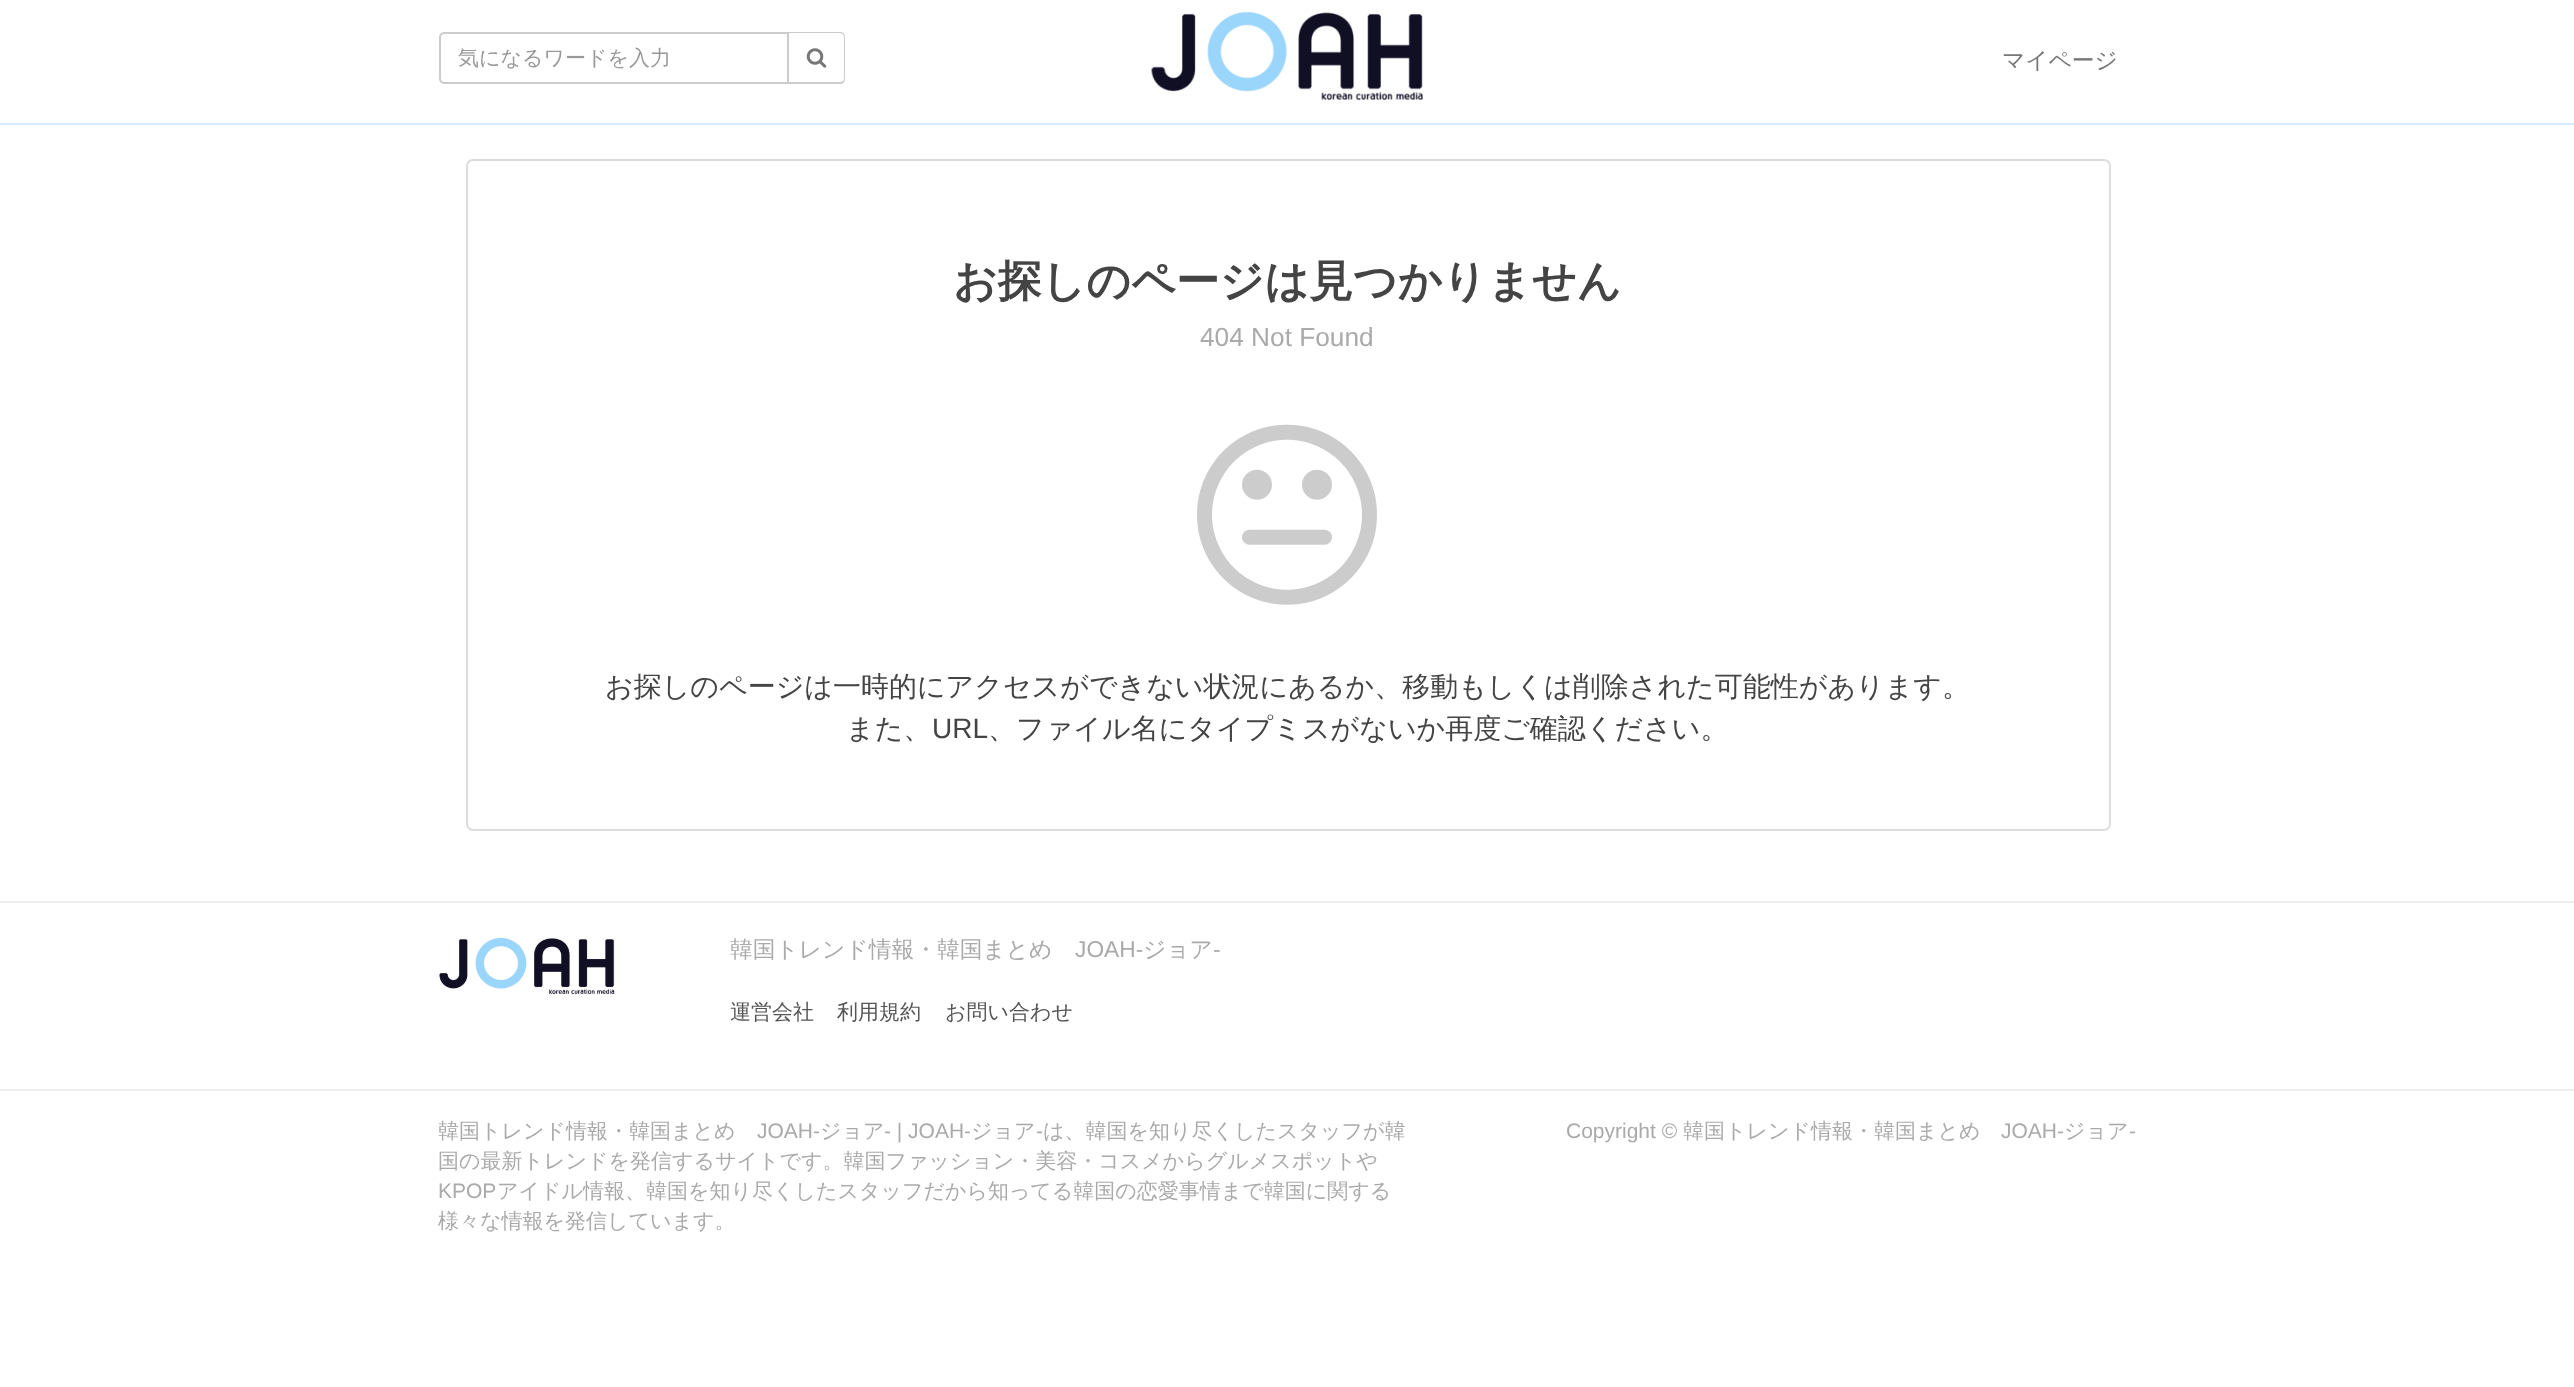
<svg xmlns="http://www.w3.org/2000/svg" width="2574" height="1387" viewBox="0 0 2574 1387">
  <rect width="100%" height="100%" fill="#ffffff"/>
  <rect x="0" y="123" width="2574" height="2" fill="#d5eaff"/>
  <image x="1151" y="12" width="272" height="88" href="img1.png"/>
  <path d="M444 33H788V83H444C442 83 440 81 440 79V37C440 35 442 33 444 33Z" fill="none" stroke="#cccccc" stroke-width="2"/>
  <text x="458" y="65" font-family="WenQuanYi Zen Hei" font-size="21" font-weight="500" fill="#999999">気になるワードを入力</text>
  <path d="M789 32H840C843 32 845 34 845 37V79C845 82 843 84 840 84H789ZM789 33H840C842 33 844 35 844 37V79C844 81 842 82 840 82H789Z" fill="#cccccc" fill-rule="evenodd"/>
  <image x="806" y="48" width="21" height="20" href="img2.png"/>
  <text x="2002" y="68" font-family="WenQuanYi Zen Hei" font-size="22.75" font-weight="500" fill="#777777">マイページ</text>
  <rect x="467" y="160" width="1643" height="670" rx="6" fill="none" stroke="#dddddd" stroke-width="2"/>
  <text x="953" y="296" font-family="WenQuanYi Zen Hei" font-size="43.75" font-weight="bold" fill="#444444">お探しのページは見つかりません</text>
  <text x="1200" y="346" font-family="Liberation Sans" font-size="26.25" fill="#aaaaaa">404 Not Found</text>
  <image x="1197" y="424" width="180" height="181" href="img3.png"/>
  <text x="605" y="696" font-family="WenQuanYi Zen Hei" font-size="28" font-weight="500" fill="#444444">お探しのページは一時的にアクセスができない状況にあるか、移動もしくは削除された可能性があります。</text>
  <text x="846" y="738" font-family="WenQuanYi Zen Hei" font-size="28" font-weight="500" fill="#444444">また、</text>
  <text x="932" y="738" font-family="Liberation Sans" font-size="28" fill="#444444">URL</text>
  <text x="988" y="738" font-family="WenQuanYi Zen Hei" font-size="28" font-weight="500" fill="#444444">、ファイル名にタイプミスがないか再度ご確認ください。</text>
  <rect x="0" y="901" width="2574" height="2" fill="#eeeeee"/>
  <image x="439" y="938" width="176" height="56" href="img4.png"/>
  <text x="730" y="957" font-family="WenQuanYi Zen Hei" font-size="22.75" font-weight="500" fill="#aaaaaa">韓国トレンド情報・韓国まとめ</text>
  <text x="1075" y="957" font-family="Liberation Sans" font-size="22.75" fill="#aaaaaa">JOAH-</text>
  <text x="1143" y="957" font-family="WenQuanYi Zen Hei" font-size="22.75" font-weight="500" fill="#aaaaaa">ジョア</text>
  <text x="1213" y="957" font-family="Liberation Sans" font-size="22.75" fill="#aaaaaa">-</text>
  <text x="730" y="1019" font-family="WenQuanYi Zen Hei" font-size="21" font-weight="500" fill="#555555">運営会社</text>
  <text x="837" y="1019" font-family="WenQuanYi Zen Hei" font-size="21" font-weight="500" fill="#555555">利用規約</text>
  <text x="945" y="1019" font-family="WenQuanYi Zen Hei" font-size="21" font-weight="500" fill="#555555">お問い合わせ</text>
  <rect x="0" y="1089" width="2574" height="2" fill="#eeeeee"/>
  <text x="438" y="1138" font-family="WenQuanYi Zen Hei" font-size="21" font-weight="500" fill="#aaaaaa">韓国トレンド情報・韓国まとめ</text>
  <text x="757" y="1138" font-family="Liberation Sans" font-size="21" fill="#aaaaaa">JOAH-</text>
  <text x="820" y="1138" font-family="WenQuanYi Zen Hei" font-size="21" font-weight="500" fill="#aaaaaa">ジョア</text>
  <text x="884" y="1138" font-family="Liberation Sans" font-size="21" fill="#aaaaaa">- | JOAH-</text>
  <text x="971" y="1138" font-family="WenQuanYi Zen Hei" font-size="21" font-weight="500" fill="#aaaaaa">ジョア</text>
  <text x="1036" y="1138" font-family="Liberation Sans" font-size="21" fill="#aaaaaa">-</text>
  <text x="1043" y="1138" font-family="WenQuanYi Zen Hei" font-size="21" font-weight="500" fill="#aaaaaa">は、韓国を知り尽くしたスタッフが韓</text>
  <text x="438" y="1168" font-family="WenQuanYi Zen Hei" font-size="21" font-weight="500" fill="#aaaaaa">国の最新トレンドを発信するサイトです。韓国ファッション・美容・コスメからグルメスポットや</text>
  <text x="438" y="1198" font-family="Liberation Sans" font-size="21" fill="#aaaaaa">KPOP</text>
  <text x="497" y="1198" font-family="WenQuanYi Zen Hei" font-size="21" font-weight="500" fill="#aaaaaa">アイドル情報、韓国を知り尽くしたスタッフだから知ってる韓国の恋愛事情まで韓国に関する</text>
  <text x="438" y="1228" font-family="WenQuanYi Zen Hei" font-size="21" font-weight="500" fill="#aaaaaa">様々な情報を発信しています。</text>
  <text x="1566" y="1138" font-family="Liberation Sans" font-size="21" fill="#aaaaaa">Copyright ©</text>
  <text x="1683" y="1138" font-family="WenQuanYi Zen Hei" font-size="21" font-weight="500" fill="#aaaaaa">韓国トレンド情報・韓国まとめ</text>
  <text x="2001" y="1138" font-family="Liberation Sans" font-size="21" fill="#aaaaaa">JOAH-</text>
  <text x="2064" y="1138" font-family="WenQuanYi Zen Hei" font-size="21" font-weight="500" fill="#aaaaaa">ジョア</text>
  <text x="2129" y="1138" font-family="Liberation Sans" font-size="21" fill="#aaaaaa">-</text>
</svg>
